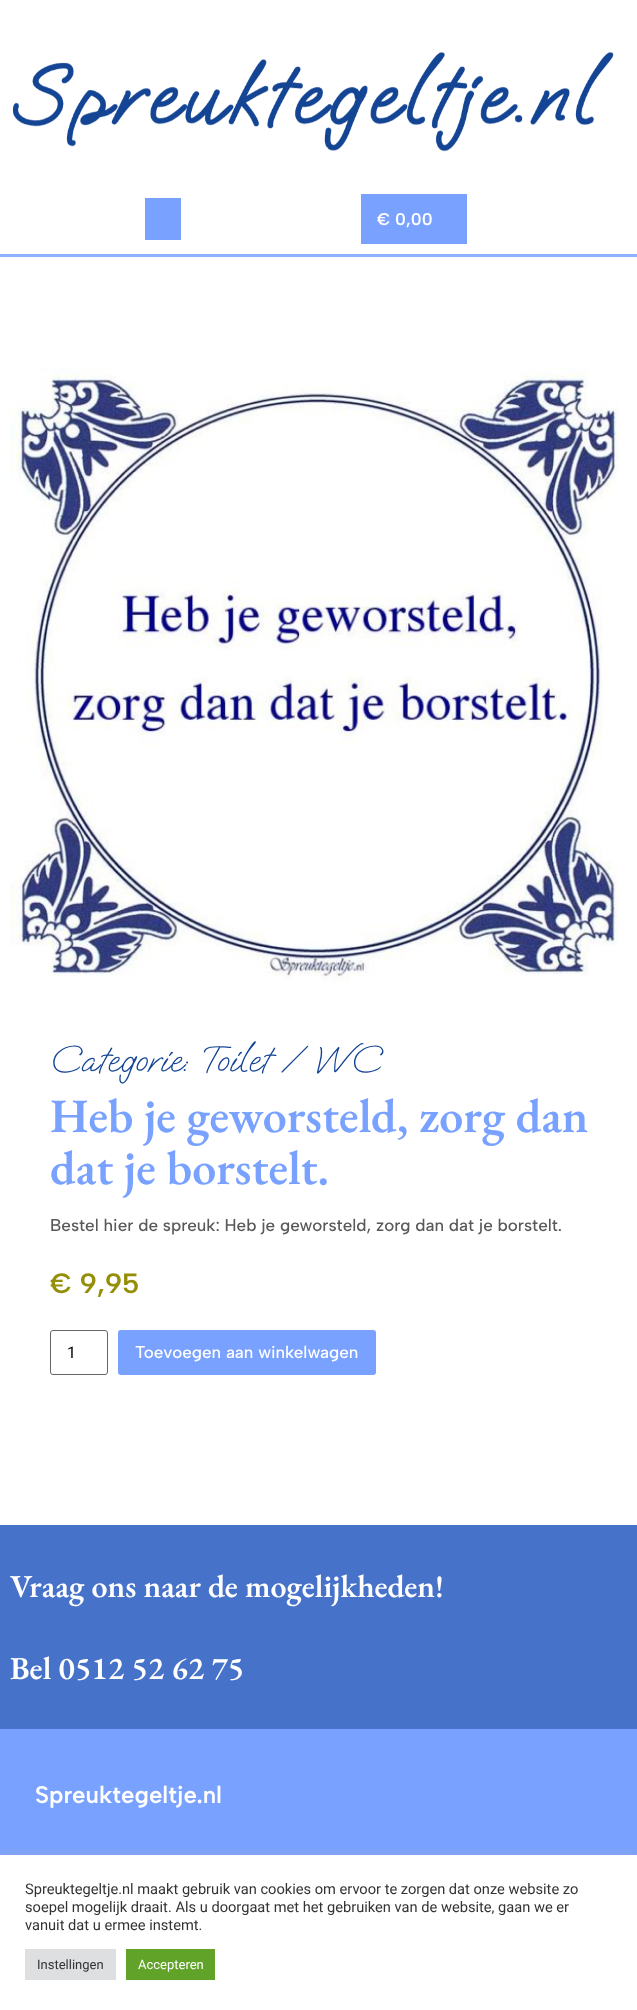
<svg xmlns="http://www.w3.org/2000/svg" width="637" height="2010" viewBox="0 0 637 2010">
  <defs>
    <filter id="blur1" x="-50%" y="-200%" width="200%" height="500%"><feGaussianBlur stdDeviation="5"/></filter>
  </defs>
  <rect width="100%" height="100%" fill="#ffffff"/>
  <rect x="0" y="254" width="637" height="3" fill="#90b1ff"/>
  <image x="12" y="52" width="602" height="100" href="img1.png"/>
  <rect x="145" y="198" width="36" height="42" fill="#79a1ff"/>
  <rect x="361" y="194" width="106" height="50" fill="#79a1ff"/>
  <text x="377" y="225" font-family="Albert Sans" font-size="17" font-weight="600" fill="#ffffff">€ 0,00</text>
  <image x="10" y="367" width="609" height="616" href="img2.png"/>
  <text x="50" y="1071" font-family="Oooh Baby" font-size="38" fill="#144494">Categorie: Toilet / WC</text>
  <text x="50" y="1132" font-family="EB Garamond" font-size="48" font-weight="600" fill="#79a1ff">Heb je geworsteld, zorg dan</text>
  <text x="50" y="1184" font-family="EB Garamond" font-size="48" font-weight="600" fill="#79a1ff">dat je borstelt.</text>
  <text x="50" y="1231" font-family="Albert Sans" font-size="17" font-weight="500" fill="#595959">Bestel hier de spreuk: Heb je geworsteld, zorg dan dat je borstelt.</text>
  <text x="50" y="1293" font-family="Albert Sans" font-size="28" font-weight="600" fill="#958e09">€ 9,95</text>
  <rect x="50.5" y="1330.5" width="57" height="44" rx="2.5" fill="none" stroke="#666666"/>
  <text x="67" y="1358" font-family="Roboto" font-size="16" fill="#000000">1</text>
  <rect x="118" y="1330" width="258" height="45" rx="3" fill="#79a1ff"/>
  <text x="135" y="1358" font-family="Albert Sans" font-size="17" font-weight="500" fill="#ffffff">Toevoegen aan winkelwagen</text>
  <rect x="0" y="1525" width="637" height="204" fill="#4772ca"/>
  <text x="10" y="1597" font-family="EB Garamond" font-size="32" font-weight="600" fill="#ffffff">Vraag ons naar de mogelijkheden!</text>
  <text x="10" y="1679" font-family="EB Garamond" font-size="32" font-weight="600" fill="#ffffff">Bel 0512 52 62 75</text>
  <rect x="0" y="1729" width="637" height="126" fill="#79a1ff"/>
  <text x="35" y="1803" font-family="Albert Sans" font-size="24" font-weight="600" fill="#ffffff">Spreuktegeltje.nl</text>
  <rect x="0" y="1854" width="637" height="155" fill="#acabab" fill-opacity="0.3" filter="url(#blur1)"/>
  <rect x="0" y="1855" width="637" height="155" fill="#ffffff"/>
  <text x="25" y="1894" font-family="Roboto" font-size="14.65" fill="#333333">Spreuktegeltje.nl maakt gebruik van cookies om ervoor te zorgen dat onze website zo</text>
  <text x="25" y="1912" font-family="Roboto" font-size="14.65" fill="#333333">soepel mogelijk draait. Als u doorgaat met het gebruiken van de website, gaan we er</text>
  <text x="25" y="1930" font-family="Roboto" font-size="14.65" fill="#333333">vanuit dat u ermee instemt.</text>
  <rect x="25" y="1949" width="91" height="31" fill="#dedfe0"/>
  <text x="37" y="1969" font-family="Roboto" font-size="13" fill="#333333">Instellingen</text>
  <rect x="126" y="1949" width="89" height="31" fill="#61a229"/>
  <text x="138" y="1969" font-family="Roboto" font-size="13" fill="#ffffff">Accepteren</text>
</svg>
